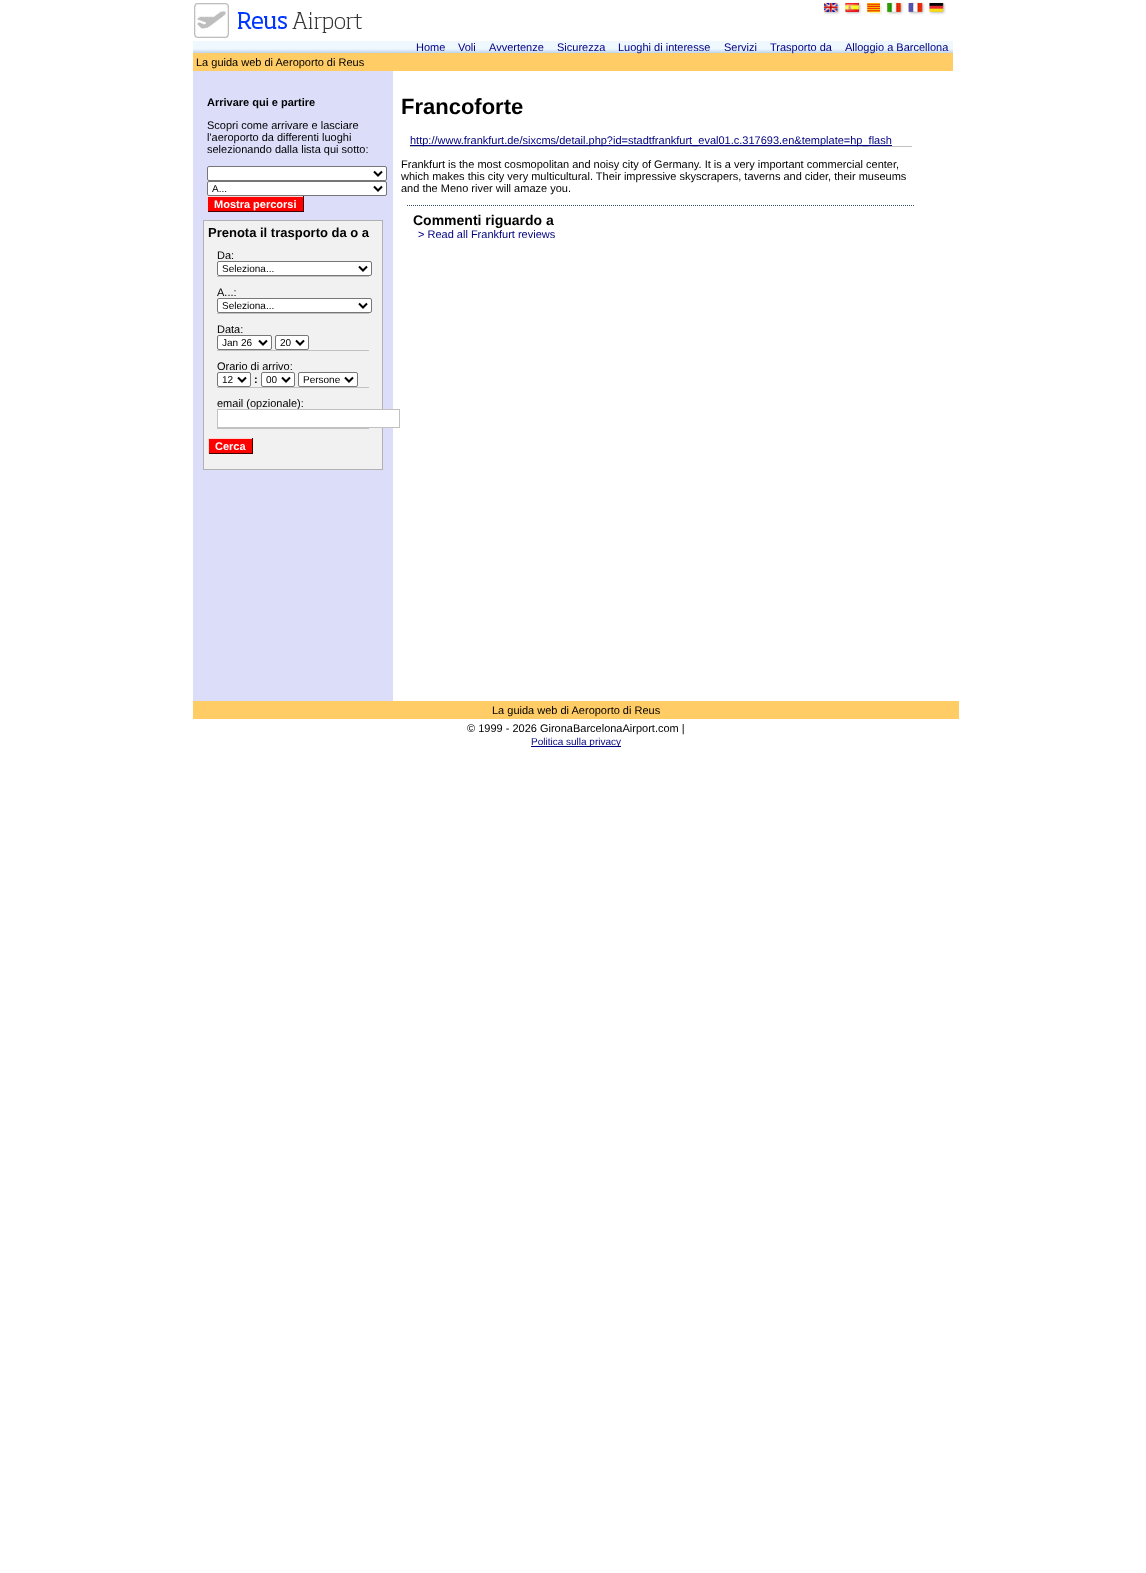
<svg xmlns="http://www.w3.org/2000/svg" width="1146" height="1573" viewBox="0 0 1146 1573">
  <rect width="100%" height="100%" fill="#ffffff"/>
  <image x="194" y="3" width="168" height="35" href="img1.png"/>
  <image x="823" y="2" width="17" height="13" href="img2.png"/>
  <image x="845" y="2" width="17" height="13" href="img3.png"/>
  <image x="867" y="3" width="15" height="11" href="img4.png"/>
  <image x="886" y="2" width="18" height="13" href="img5.png"/>
  <image x="908" y="2" width="17" height="13" href="img6.png"/>
  <image x="929" y="2" width="17" height="13" href="img7.png"/>
  <image x="193" y="41" width="760" height="12" href="img8.png"/>
  <text x="416" y="51" font-family="Liberation Sans" font-size="11" fill="#000080">Home</text>
  <text x="458" y="51" font-family="Liberation Sans" font-size="11" fill="#000080">Voli</text>
  <text x="489" y="51" font-family="Liberation Sans" font-size="11" fill="#000080">Avvertenze</text>
  <text x="557" y="51" font-family="Liberation Sans" font-size="11" fill="#000080">Sicurezza</text>
  <rect x="193" y="53" width="760" height="18" fill="#ffcc66"/>
  <text x="618" y="51" font-family="Liberation Sans" font-size="11" fill="#000080">Luoghi di interesse</text>
  <text x="724" y="51" font-family="Liberation Sans" font-size="11" fill="#000080">Servizi</text>
  <text x="770" y="51" font-family="Liberation Sans" font-size="11" fill="#000080">Trasporto da</text>
  <text x="845" y="51" font-family="Liberation Sans" font-size="11" fill="#000080">Alloggio a Barcellona</text>
  <text x="196" y="66" font-family="Liberation Sans" font-size="11" fill="#000000">La guida web di Aeroporto di Reus</text>
  <rect x="193" y="71" width="200" height="630" fill="#dbddf9"/>
  <text x="207" y="106" font-family="Liberation Sans" font-size="11" font-weight="bold" fill="#000000">Arrivare qui e partire</text>
  <text x="207" y="129" font-family="Liberation Sans" font-size="11" fill="#000000">Scopri come arrivare e lasciare</text>
  <text x="207" y="141" font-family="Liberation Sans" font-size="11" fill="#000000">l'aeroporto da differenti luoghi</text>
  <text x="207" y="153" font-family="Liberation Sans" font-size="11" fill="#000000">selezionando dalla lista qui sotto:</text>
  <rect x="207.5" y="166.5" width="179" height="14" rx="1.5" fill="#ffffff" stroke="#767676"/>
  <path d="M374 171.5L378 175.5L382 171.5" fill="none" stroke="#000000" stroke-width="2"/>
  <rect x="207.5" y="181.5" width="179" height="14" rx="1.5" fill="#ffffff" stroke="#767676"/>
  <path d="M374 186.5L378 190.5L382 186.5" fill="none" stroke="#000000" stroke-width="2"/>
  <text x="212" y="192" font-family="Liberation Sans" font-size="10" fill="#000000">A...</text>
  <rect x="208" y="197" width="95" height="14" fill="#ff0000"/>
  <rect x="207" y="196" width="97" height="1" fill="#ffd5d5"/>
  <rect x="303" y="196" width="1" height="16" fill="#420101"/>
  <rect x="207" y="211" width="97" height="1" fill="#420101"/>
  <rect x="207" y="196" width="1" height="16" fill="#ffd5d5"/>
  <text x="214" y="208" font-family="Liberation Sans" font-size="11" font-weight="bold" fill="#ffffff">Mostra percorsi</text>
  <rect x="203.5" y="220.5" width="179" height="249" fill="#f1f1f1" stroke="#b1b1b1"/>
  <text x="208" y="237" font-family="Liberation Sans" font-size="13" font-weight="bold" fill="#000000">Prenota il trasporto da o a</text>
  <rect x="217" y="276" width="152" height="1" fill="#c1c1c1"/>
  <text x="217" y="259" font-family="Liberation Sans" font-size="11" fill="#000000">Da:</text>
  <rect x="217.5" y="261.5" width="154" height="14" rx="1.5" fill="#ffffff" stroke="#767676"/>
  <path d="M359 266.5L363 270.5L367 266.5" fill="none" stroke="#000000" stroke-width="2"/>
  <text x="222" y="272" font-family="Liberation Sans" font-size="10" fill="#000000">Seleziona...</text>
  <rect x="217" y="313" width="152" height="1" fill="#c1c1c1"/>
  <text x="217" y="296" font-family="Liberation Sans" font-size="11" fill="#000000">A...:</text>
  <rect x="217.5" y="298.5" width="154" height="14" rx="1.5" fill="#ffffff" stroke="#767676"/>
  <path d="M359 303.5L363 307.5L367 303.5" fill="none" stroke="#000000" stroke-width="2"/>
  <text x="222" y="309" font-family="Liberation Sans" font-size="10" fill="#000000">Seleziona...</text>
  <rect x="217" y="350" width="152" height="1" fill="#c1c1c1"/>
  <text x="217" y="333" font-family="Liberation Sans" font-size="11" fill="#000000">Data:</text>
  <rect x="217.5" y="335.5" width="54" height="14" rx="1.5" fill="#ffffff" stroke="#767676"/>
  <path d="M259 340.5L263 344.5L267 340.5" fill="none" stroke="#000000" stroke-width="2"/>
  <text x="222" y="346" font-family="Liberation Sans" font-size="10" fill="#000000">Jan 26</text>
  <rect x="275.5" y="335.5" width="33" height="14" rx="1.5" fill="#ffffff" stroke="#767676"/>
  <path d="M296 340.5L300 344.5L304 340.5" fill="none" stroke="#000000" stroke-width="2"/>
  <text x="280" y="346" font-family="Liberation Sans" font-size="10" fill="#000000">20</text>
  <rect x="217" y="387" width="152" height="1" fill="#c1c1c1"/>
  <text x="217" y="370" font-family="Liberation Sans" font-size="11" fill="#000000">Orario di arrivo:</text>
  <rect x="217.5" y="372.5" width="33" height="14" rx="1.5" fill="#ffffff" stroke="#767676"/>
  <path d="M238 377.5L242 381.5L246 377.5" fill="none" stroke="#000000" stroke-width="2"/>
  <text x="222" y="383" font-family="Liberation Sans" font-size="10" fill="#000000">12</text>
  <text x="254" y="383" font-family="Liberation Sans" font-size="11" font-weight="bold" fill="#000000">:</text>
  <rect x="261.5" y="372.5" width="33" height="14" rx="1.5" fill="#ffffff" stroke="#767676"/>
  <path d="M282 377.5L286 381.5L290 377.5" fill="none" stroke="#000000" stroke-width="2"/>
  <text x="266" y="383" font-family="Liberation Sans" font-size="10" fill="#000000">00</text>
  <rect x="298.5" y="372.5" width="59" height="14" rx="1.5" fill="#ffffff" stroke="#767676"/>
  <path d="M345 377.5L349 381.5L353 377.5" fill="none" stroke="#000000" stroke-width="2"/>
  <text x="303" y="383" font-family="Liberation Sans" font-size="10" fill="#000000">Persone</text>
  <rect x="217" y="428" width="152" height="1" fill="#c1c1c1"/>
  <text x="217" y="407" font-family="Liberation Sans" font-size="11" fill="#000000">email (opzionale):</text>
  <rect x="218" y="410" width="175" height="17" fill="#ffffff"/>
  <rect x="217.5" y="409.5" width="182" height="18" fill="none" stroke="#c1c1c1"/>
  <rect x="209" y="439" width="43" height="14" fill="#ff0000"/>
  <rect x="208" y="438" width="45" height="1" fill="#ffd5d5"/>
  <rect x="252" y="438" width="1" height="16" fill="#420101"/>
  <rect x="208" y="453" width="45" height="1" fill="#420101"/>
  <rect x="208" y="438" width="1" height="16" fill="#ffd5d5"/>
  <text x="215" y="450" font-family="Liberation Sans" font-size="11" font-weight="bold" fill="#ffffff">Cerca</text>
  <text x="401" y="114" font-family="Liberation Sans" font-size="22" font-weight="bold" fill="#000000">Francoforte</text>
  <rect x="410" y="146" width="502" height="1" fill="#c1c1c1"/>
  <rect x="410" y="145" width="482" height="1" fill="#000080"/>
  <text x="410" y="144" font-family="Liberation Sans" font-size="11" fill="#000080">http://www.frankfurt.de/sixcms/detail.php?id=stadtfrankfurt_eval01.c.317693.en&amp;template=hp_flash</text>
  <text x="401" y="168" font-family="Liberation Sans" font-size="11" fill="#000000">Frankfurt is the most cosmopolitan and noisy city of Germany. It is a very important commercial center,</text>
  <text x="401" y="180" font-family="Liberation Sans" font-size="11" fill="#000000">which makes this city very multicultural. Their impressive skyscrapers, taverns and cider, their museums</text>
  <text x="401" y="192" font-family="Liberation Sans" font-size="11" fill="#000000">and the Meno river will amaze you.</text>
  <path d="M407 205.5H915" fill="none" stroke="#36516d" stroke-dasharray="1 1"/>
  <text x="413" y="225" font-family="Liberation Sans" font-size="14" font-weight="bold" fill="#000000">Commenti riguardo a</text>
  <text x="418" y="238" font-family="Liberation Sans" font-size="11" fill="#000080">&gt; Read all Frankfurt reviews</text>
  <rect x="193" y="701" width="766" height="18" fill="#ffcc66"/>
  <text x="492" y="714" font-family="Liberation Sans" font-size="11" fill="#000000">La guida web di Aeroporto di Reus</text>
  <text x="467" y="732" font-family="Liberation Sans" font-size="11" fill="#000000">© 1999 - 2026 GironaBarcelonaAirport.com |</text>
  <rect x="531" y="746" width="90" height="1" fill="#000080"/>
  <text x="531" y="745" font-family="Liberation Sans" font-size="10" fill="#000080">Politica sulla privacy</text>
</svg>
